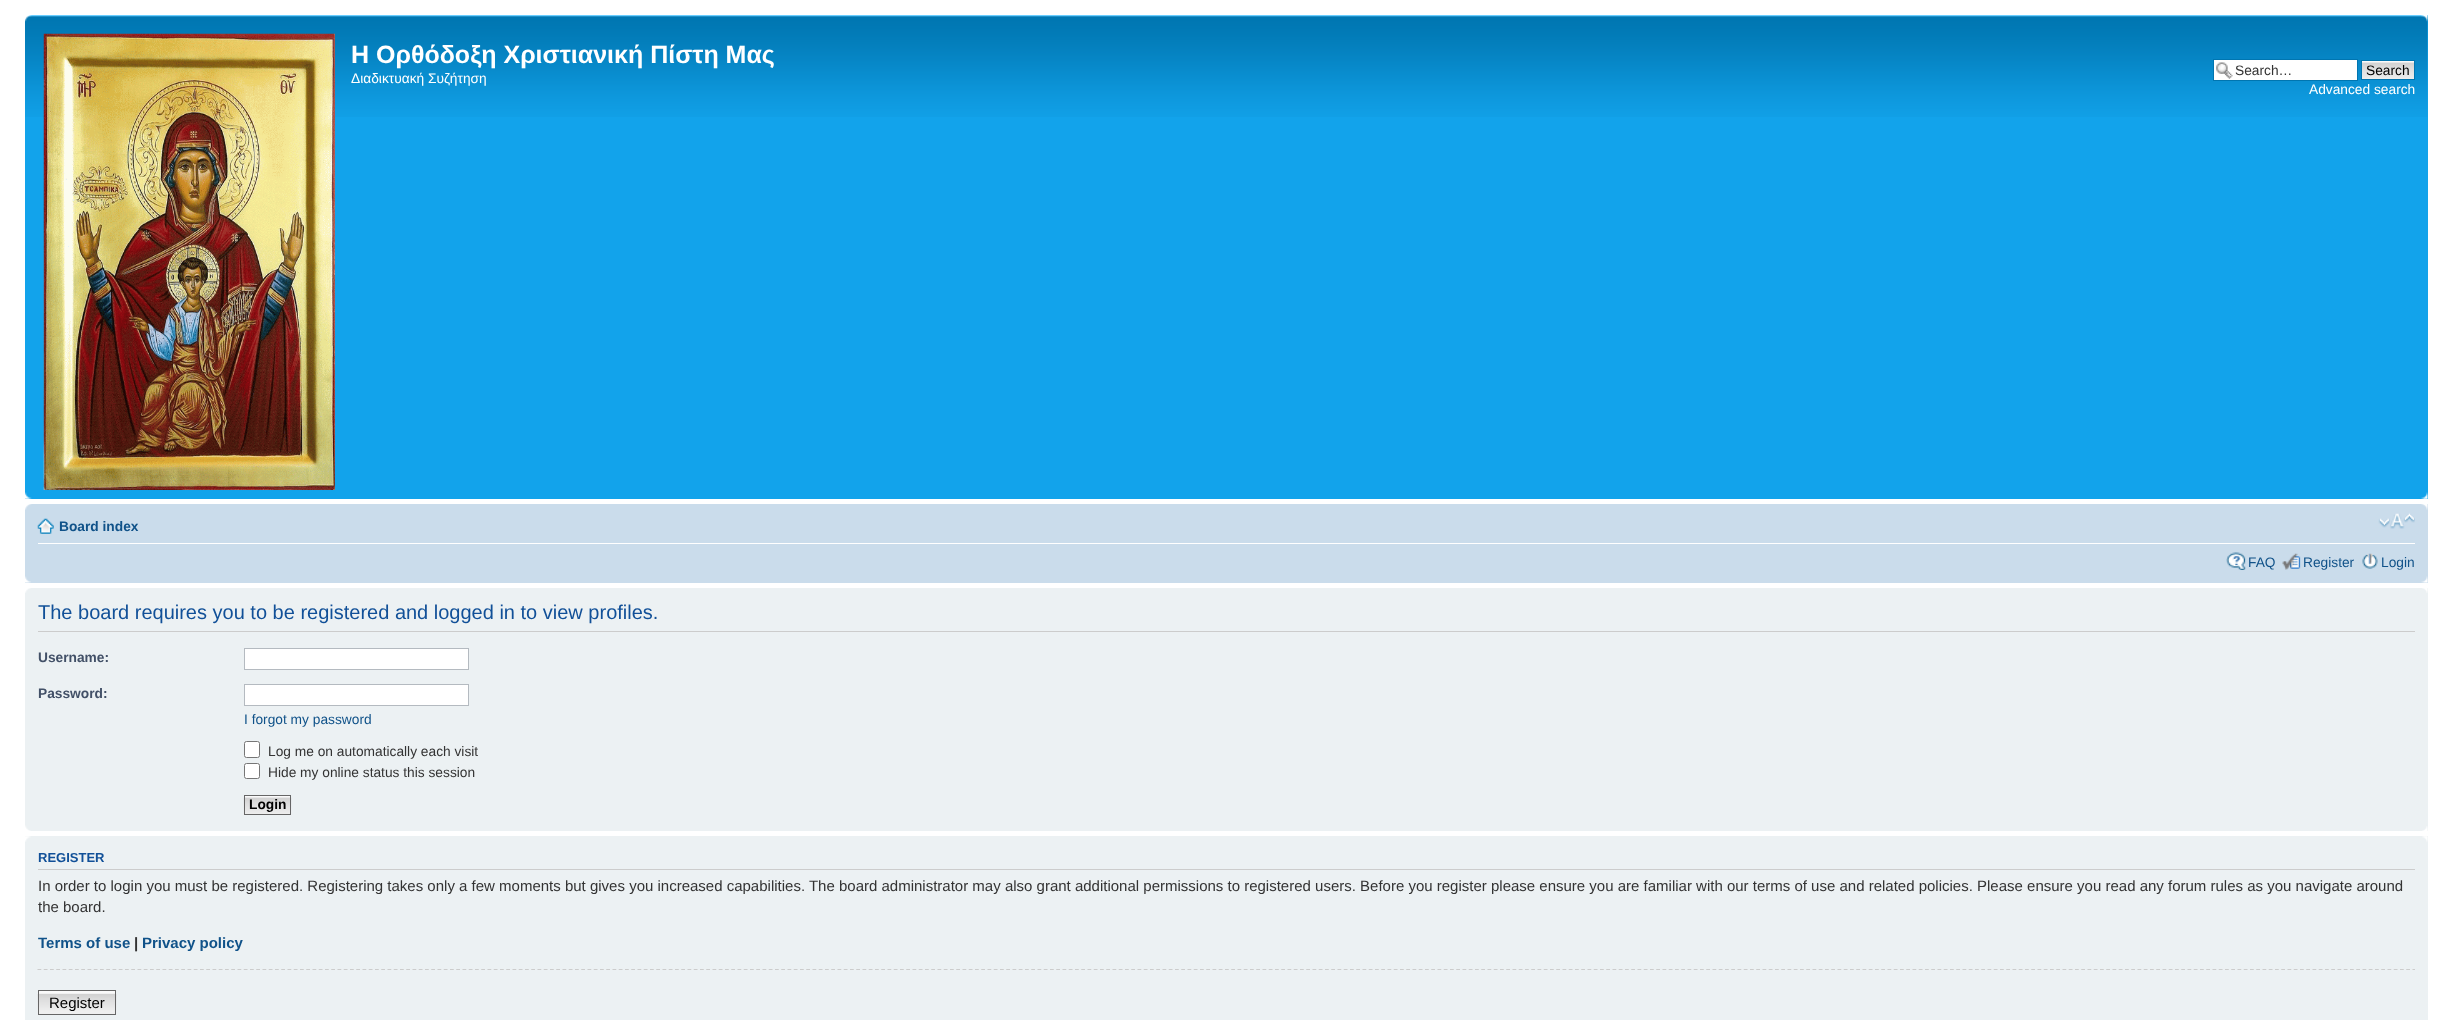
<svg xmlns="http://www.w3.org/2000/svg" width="2452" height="1020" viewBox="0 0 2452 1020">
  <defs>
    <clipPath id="clip1"><rect x="38" y="843" width="2377" height="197"/></clipPath>
  </defs>
  <rect width="100%" height="100%" fill="#ffffff"/>
  <rect x="25" y="15" width="2403" height="484" fill="#12a3eb"/>
  <image x="25" y="15" width="2403" height="102" href="img1.png"/>
  <image x="25" y="15" width="7" height="7" href="img2.png"/>
  <image x="2421" y="15" width="7" height="7" href="img3.png"/>
  <image x="43" y="33" width="292" height="457" href="img4.png"/>
  <text x="351" y="63" font-family="Liberation Sans" font-size="25" font-weight="bold" fill="#ffffff">Η Ορθόδοξη Χριστιανική Πίστη Μας</text>
  <text x="351" y="83" font-family="Liberation Sans" font-size="13.75" fill="#ffffff">Διαδικτυακή Συζήτηση</text>
  <rect x="2214" y="60" width="143" height="20" fill="#ffffff"/>
  <image x="2216" y="62" width="17" height="17" href="img5.png"/>
  <rect x="2213.5" y="59.5" width="144" height="21" fill="none" stroke="#0075b0"/>
  <text x="2235" y="75" font-family="Liberation Sans" font-size="13.75" fill="#333333">Search…</text>
  <rect x="2362" y="61" width="52" height="1" fill="#fafafa"/>
  <image x="2362" y="62" width="52" height="17" href="img6.png"/>
  <rect x="2361.5" y="60.5" width="53" height="19" fill="none" stroke="#0075b0"/>
  <text x="2366" y="75" font-family="Liberation Sans" font-size="13.75" fill="#000000">Search</text>
  <text x="2309" y="94" font-family="Liberation Sans" font-size="13.75" fill="#ffffff">Advanced search</text>
  <image x="25" y="492" width="7" height="7" href="img7.png"/>
  <image x="2421" y="492" width="7" height="7" href="img8.png"/>
  <rect x="25" y="504" width="2403" height="79" fill="#cadceb"/>
  <image x="25" y="504" width="7" height="6" href="img9.png"/>
  <image x="2421" y="504" width="7" height="6" href="img10.png"/>
  <rect x="38" y="543" width="2377" height="1" fill="#ffffff"/>
  <image x="37" y="518" width="17" height="16" href="img11.png"/>
  <text x="59" y="531" font-family="Liberation Sans" font-size="13.75" font-weight="bold" fill="#105289">Board index</text>
  <image x="2378" y="513" width="37" height="16" href="img12.png"/>
  <image x="2226" y="552" width="20" height="18" href="img13.png"/>
  <text x="2248" y="567" font-family="Liberation Sans" font-size="13.75" fill="#105289">FAQ</text>
  <image x="2282" y="553" width="19" height="17" href="img14.png"/>
  <text x="2303" y="567" font-family="Liberation Sans" font-size="13.75" fill="#105289">Register</text>
  <image x="2362" y="553" width="16" height="16" href="img15.png"/>
  <text x="2381" y="567" font-family="Liberation Sans" font-size="13.75" fill="#105289">Login</text>
  <image x="25" y="576" width="6" height="7" href="img16.png"/>
  <image x="2421" y="576" width="7" height="7" href="img17.png"/>
  <rect x="25" y="588" width="2403" height="243" fill="#ecf1f3"/>
  <image x="25" y="588" width="6" height="5" href="img18.png"/>
  <image x="2422" y="588" width="6" height="5" href="img19.png"/>
  <rect x="38" y="631" width="2377" height="1" fill="#cccccc"/>
  <text x="38" y="619" font-family="Liberation Sans" font-size="20" fill="#115098">The board requires you to be registered and logged in to view profiles.</text>
  <text x="38" y="662" font-family="Liberation Sans" font-size="13.75" font-weight="bold" fill="#425067">Username:</text>
  <rect x="244.5" y="648.5" width="224" height="21" fill="#ffffff" stroke="#b4bac0"/>
  <text x="38" y="698" font-family="Liberation Sans" font-size="13.75" font-weight="bold" fill="#425067">Password:</text>
  <rect x="244.5" y="684.5" width="224" height="21" fill="#ffffff" stroke="#b4bac0"/>
  <text x="244" y="724" font-family="Liberation Sans" font-size="13.75" fill="#105289">I forgot my password</text>
  <rect x="244.5" y="741.5" width="15" height="16" rx="2" fill="#ffffff" stroke="#767676"/>
  <text x="268" y="756" font-family="Liberation Sans" font-size="13.75" fill="#333333">Log me on automatically each visit</text>
  <rect x="244.5" y="763.5" width="15" height="15" rx="2" fill="#ffffff" stroke="#767676"/>
  <text x="268" y="777" font-family="Liberation Sans" font-size="13.75" fill="#333333">Hide my online status this session</text>
  <rect x="245" y="796" width="45" height="1" fill="#fafafa"/>
  <image x="243" y="797" width="49" height="18" href="img20.png"/>
  <rect x="244.5" y="795.5" width="46" height="19" fill="none" stroke="#666666"/>
  <text x="249" y="809" font-family="Liberation Sans" font-size="13.75" font-weight="bold" fill="#000000">Login</text>
  <image x="25" y="825" width="6" height="6" href="img21.png"/>
  <image x="2422" y="826" width="6" height="5" href="img22.png"/>
  <rect x="25" y="836" width="2403" height="184" fill="#ecf1f3"/>
  <image x="25" y="836" width="6" height="6" href="img23.png"/>
  <image x="2422" y="836" width="6" height="6" href="img24.png"/>
  <rect x="38" y="869" width="2377" height="1" fill="#cccccc"/>
  <text x="38" y="862" font-family="Liberation Sans" font-size="13" font-weight="bold" fill="#115098">REGISTER</text>
  <text x="38" y="891" font-family="Liberation Sans" font-size="15" fill="#333333">In order to login you must be registered. Registering takes only a few moments but gives you increased capabilities. The board administrator may also grant additional permissions to registered users. Before you register please ensure you are familiar with our terms of use and related policies. Please ensure you read any forum rules as you navigate around</text>
  <text x="38" y="912" font-family="Liberation Sans" font-size="15" fill="#333333">the board.</text>
  <g clip-path="url(#clip1)">
    <text x="38" y="948" font-family="Liberation Sans" font-size="15" font-weight="bold" fill="#105289">Terms of use</text>
  </g>
  <text x="134" y="948" font-family="Liberation Sans" font-size="15" font-weight="bold" fill="#333333">|</text>
  <text x="142" y="948" font-family="Liberation Sans" font-size="15" font-weight="bold" fill="#105289">Privacy policy</text>
  <path d="M37.5 969.5H2415" fill="none" stroke="#cccccc" stroke-width="1.2" stroke-dasharray="3.75 2.5"/>
  <image x="37" y="993" width="80" height="22" href="img25.png"/>
  <rect x="39" y="991" width="76" height="2" fill="#fafafa"/>
  <rect x="38.5" y="990.5" width="77" height="24" fill="none" stroke="#666666"/>
  <text x="49" y="1008" font-family="Liberation Sans" font-size="15" fill="#000000">Register</text>
</svg>
